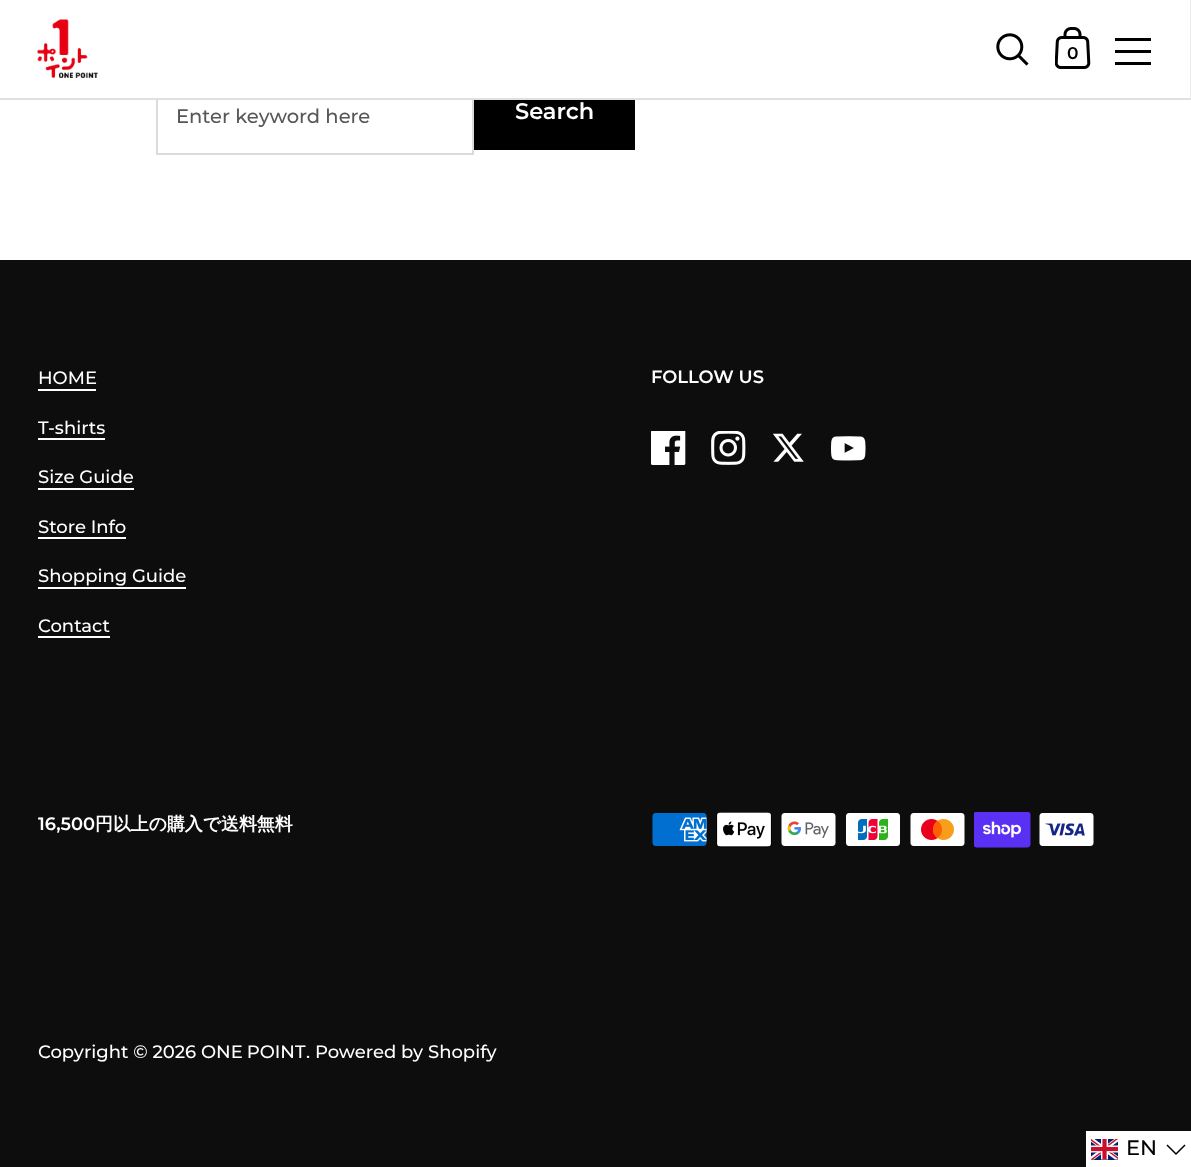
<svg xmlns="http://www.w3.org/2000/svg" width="1191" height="1167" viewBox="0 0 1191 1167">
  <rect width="100%" height="100%" fill="#ffffff"/>
  <rect x="157" y="73" width="316" height="81" fill="none" stroke="#dbdbdb" stroke-width="2"/>
  <rect x="0" y="98" width="1191" height="2" fill="#e0e0e0"/>
  <rect x="156" y="72" width="318" height="26" fill="#ffffff"/>
  <rect x="1190" y="0" width="1" height="98" fill="#ebebeb"/>
  <image x="37" y="19" width="61" height="59" href="img1.png"/>
  <image x="996" y="33" width="33" height="33" href="img2.png"/>
  <image x="1055" y="27" width="36" height="42" href="img3.png"/>
  <text x="1067" y="59" font-family="Montserrat" font-size="17" font-weight="600" fill="#000000">0</text>
  <rect x="1115" y="38" width="36" height="3" fill="#000000"/>
  <rect x="1115" y="50" width="36" height="3" fill="#000000"/>
  <rect x="1115" y="62" width="36" height="3" fill="#000000"/>
  <text x="176" y="123" font-family="Montserrat" font-size="19.5" font-weight="500" fill="#575757">Enter keyword here</text>
  <rect x="474" y="100" width="161" height="50" fill="#000000"/>
  <text x="515" y="119" font-family="Montserrat" font-size="22.5" font-weight="600" fill="#ffffff">Search</text>
  <rect x="0" y="260" width="1191" height="907" fill="#0d0d0d"/>
  <text x="38" y="384" font-family="Montserrat" font-size="18" font-weight="500" fill="#ffffff">HOME</text>
  <rect x="38" y="389" width="58" height="2" fill="#ffffff"/>
  <text x="38" y="434" font-family="Montserrat" font-size="18" font-weight="500" fill="#ffffff">T-shirts</text>
  <rect x="38" y="438" width="67" height="2" fill="#ffffff"/>
  <text x="38" y="483" font-family="Montserrat" font-size="18" font-weight="500" fill="#ffffff">Size Guide</text>
  <rect x="38" y="488" width="96" height="2" fill="#ffffff"/>
  <text x="38" y="533" font-family="Montserrat" font-size="18" font-weight="500" fill="#ffffff">Store Info</text>
  <rect x="38" y="537" width="88" height="2" fill="#ffffff"/>
  <text x="38" y="582" font-family="Montserrat" font-size="18" font-weight="500" fill="#ffffff">Shopping Guide</text>
  <rect x="38" y="587" width="148" height="2" fill="#ffffff"/>
  <text x="38" y="632" font-family="Montserrat" font-size="18" font-weight="500" fill="#ffffff">Contact</text>
  <rect x="38" y="636" width="72" height="2" fill="#ffffff"/>
  <text x="651" y="383" font-family="Montserrat" font-size="17.9" font-weight="600" fill="#ffffff">FOLLOW US</text>
  <image x="651" y="431" width="35" height="34" href="img4.png"/>
  <image x="711" y="431" width="35" height="34" href="img5.png"/>
  <image x="772" y="433" width="32" height="29" href="img6.png"/>
  <image x="831" y="436" width="35" height="25" href="img7.png"/>
  <text x="38" y="830" font-family="Montserrat" font-size="17.9" font-weight="600" fill="#ffffff">16,500</text>
  <text x="95" y="830" font-family="WenQuanYi Zen Hei" font-size="17.9" font-weight="bold" fill="#ffffff">円以上の購入で送料無料</text>
  <image x="652" y="813" width="55" height="33" href="img8.png"/>
  <image x="716" y="812" width="56" height="36" href="img9.png"/>
  <image x="781" y="813" width="55" height="33" href="img10.png"/>
  <image x="846" y="813" width="54" height="33" href="img11.png"/>
  <image x="910" y="813" width="55" height="33" href="img12.png"/>
  <image x="974" y="812" width="57" height="36" href="img13.png"/>
  <image x="1039" y="813" width="55" height="33" href="img14.png"/>
  <text x="38" y="1058" font-family="Montserrat" font-size="18" font-weight="500" fill="#ffffff">Copyright © 2026</text>
  <text x="201" y="1058" word-spacing="-1" font-family="Montserrat" font-size="18" font-weight="500" fill="#ffffff">ONE POINT</text>
  <text x="306" y="1058" font-family="Montserrat" font-size="18" font-weight="500" fill="#ffffff">. Powered by Shopify</text>
  <rect x="1086" y="1131" width="105" height="36" fill="#ffffff"/>
  <image x="1091" y="1139" width="27" height="21" href="img15.png"/>
  <text x="1126" y="1155" font-family="Montserrat" font-size="21" font-weight="500" fill="#000000">EN</text>
  <path d="M1167 1145L1176 1154L1185 1145" fill="none" stroke="#000000" stroke-width="1.5"/>
</svg>
